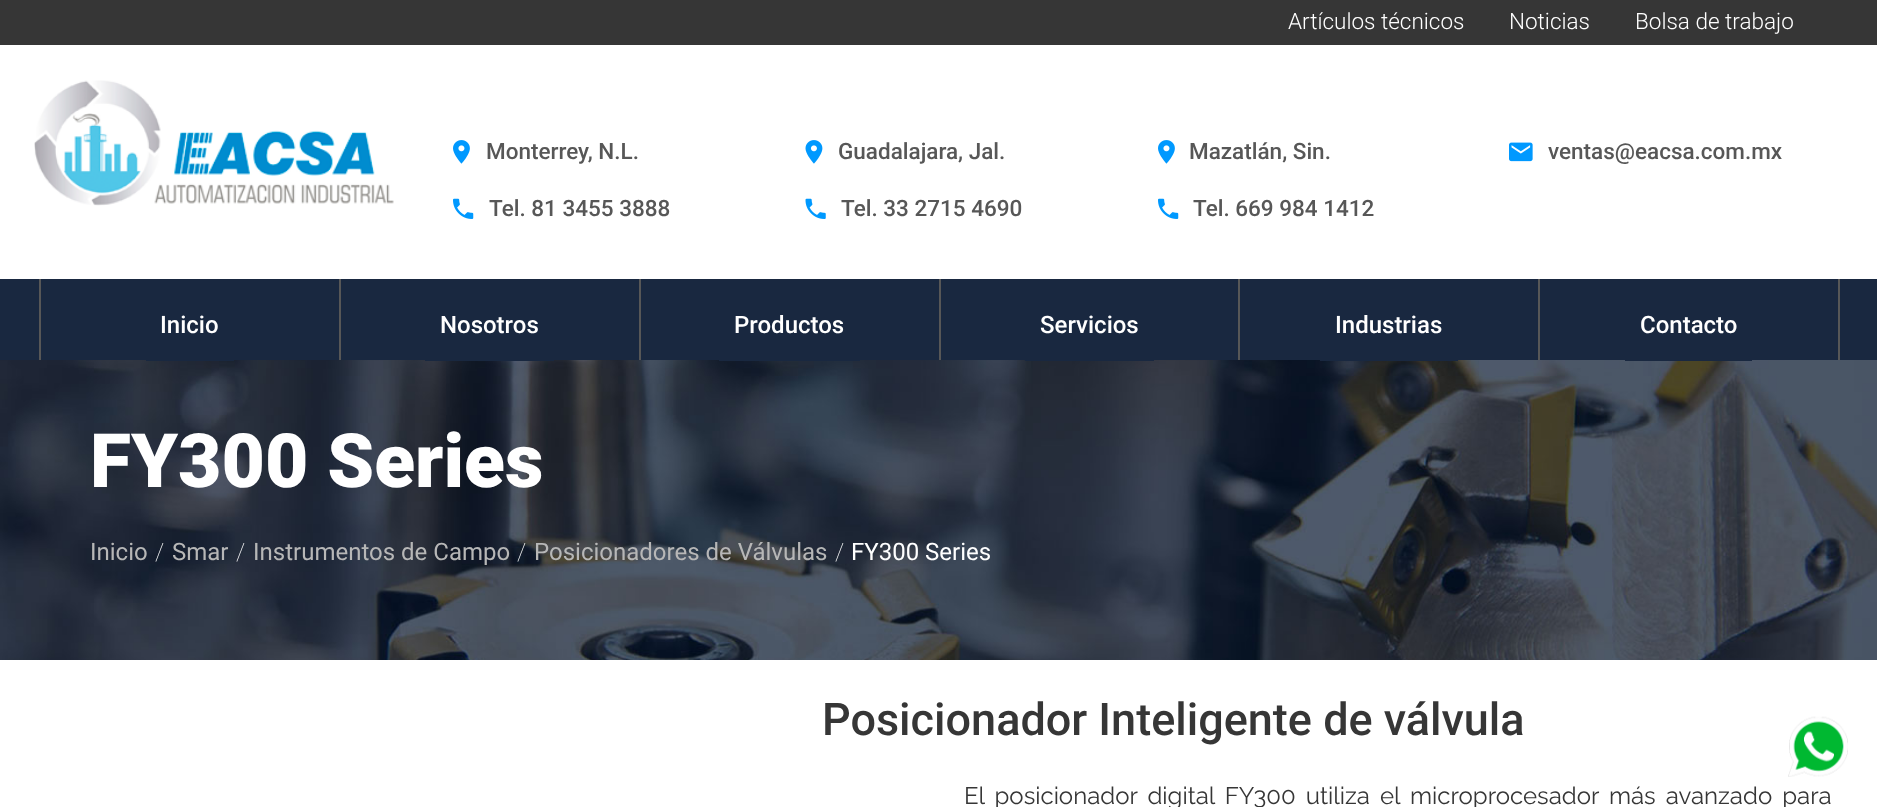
<svg xmlns="http://www.w3.org/2000/svg" width="1877" height="807" viewBox="0 0 1877 807">
  <rect width="100%" height="100%" fill="#ffffff"/>
  <rect x="0" y="0" width="1877" height="45" fill="#363636"/>
  <text x="1288" y="29" font-family="Roboto" font-size="22.5" font-weight="300" fill="#ffffff">Artículos técnicos</text>
  <text x="1509" y="29" font-family="Roboto" font-size="22.5" font-weight="300" fill="#ffffff">Noticias</text>
  <text x="1635" y="29" font-family="Roboto" font-size="22.5" font-weight="300" fill="#ffffff">Bolsa de trabajo</text>
  <image x="34" y="80" width="360" height="126" href="img1.png"/>
  <image x="453" y="140" width="17" height="24" href="img2.png"/>
  <text x="486" y="159" font-family="Roboto" font-size="22.5" font-weight="500" fill="#575757">Monterrey, N.L.</text>
  <image x="453" y="198" width="21" height="21" href="img3.png"/>
  <text x="489" y="216" font-family="Roboto" font-size="22.5" font-weight="500" fill="#575757">Tel. 81 3455 3888</text>
  <image x="805" y="140" width="18" height="24" href="img4.png"/>
  <text x="838" y="159" font-family="Roboto" font-size="22.5" font-weight="500" fill="#575757">Guadalajara, Jal.</text>
  <image x="805" y="198" width="21" height="21" href="img5.png"/>
  <text x="841" y="216" font-family="Roboto" font-size="22.5" font-weight="500" fill="#575757">Tel. 33 2715 4690</text>
  <image x="1158" y="140" width="17" height="24" href="img2.png"/>
  <text x="1189" y="159" font-family="Roboto" font-size="22.5" font-weight="500" fill="#575757">Mazatlán, Sin.</text>
  <image x="1158" y="198" width="21" height="21" href="img3.png"/>
  <text x="1193" y="216" font-family="Roboto" font-size="22.5" font-weight="500" fill="#575757">Tel. 669 984 1412</text>
  <image x="1509" y="142" width="24" height="20" href="img6.png"/>
  <text x="1548" y="159" font-family="Roboto" font-size="22.5" font-weight="500" fill="#575757">ventas@eacsa.com.mx</text>
  <rect x="0" y="279" width="1877" height="81" fill="#192840"/>
  <rect x="1838" y="279" width="2" height="81" fill="#575757"/>
  <rect x="39" y="279" width="2" height="81" fill="#575757"/>
  <image x="0" y="360" width="1877" height="300" href="img7.png"/>
  <rect x="146" y="360" width="88" height="1" fill="#192840"/>
  <text x="160" y="333" font-family="Roboto" font-size="24" font-weight="500" fill="#ffffff">Inicio</text>
  <rect x="339" y="279" width="2" height="81" fill="#575757"/>
  <rect x="425" y="360" width="129" height="1" fill="#192840"/>
  <text x="440" y="333" font-family="Roboto" font-size="24" font-weight="500" fill="#ffffff">Nosotros</text>
  <rect x="639" y="279" width="2" height="81" fill="#575757"/>
  <rect x="719" y="360" width="141" height="1" fill="#192840"/>
  <text x="734" y="333" font-family="Roboto" font-size="24" font-weight="500" fill="#ffffff">Productos</text>
  <rect x="939" y="279" width="2" height="81" fill="#575757"/>
  <rect x="1025" y="360" width="129" height="1" fill="#192840"/>
  <text x="1040" y="333" font-family="Roboto" font-size="24" font-weight="500" fill="#ffffff">Servicios</text>
  <rect x="1238" y="279" width="2" height="81" fill="#575757"/>
  <rect x="1320" y="360" width="138" height="1" fill="#192840"/>
  <text x="1335" y="333" font-family="Roboto" font-size="24" font-weight="500" fill="#ffffff">Industrias</text>
  <rect x="1538" y="279" width="2" height="81" fill="#575757"/>
  <rect x="1625" y="360" width="127" height="1" fill="#192840"/>
  <text x="1640" y="333" font-family="Roboto" font-size="24" font-weight="500" fill="#ffffff">Contacto</text>
  <text x="90" y="487" font-family="Roboto" font-size="75" font-weight="900" fill="#ffffff">FY300 Series</text>
  <text x="90" y="560" font-family="Roboto" font-size="24" fill="#b7b7b7">Inicio</text>
  <text x="155" y="560" font-family="Roboto" font-size="24" font-weight="100" fill="#ffffff">/</text>
  <text x="172" y="560" font-family="Roboto" font-size="24" fill="#b7b7b7">Smar</text>
  <text x="236" y="560" font-family="Roboto" font-size="24" font-weight="100" fill="#ffffff">/</text>
  <text x="253" y="560" font-family="Roboto" font-size="24" fill="#b7b7b7">Instrumentos de Campo</text>
  <text x="517" y="560" font-family="Roboto" font-size="24" font-weight="100" fill="#ffffff">/</text>
  <text x="534" y="560" font-family="Roboto" font-size="24" fill="#b7b7b7">Posicionadores de Válvulas</text>
  <text x="835" y="560" font-family="Roboto" font-size="24" font-weight="100" fill="#ffffff">/</text>
  <text x="851" y="560" font-family="Roboto" font-size="24" fill="#ffffff">FY300 Series</text>
  <text x="822" y="735" font-family="Roboto" font-size="45" font-weight="500" fill="#363636">Posicionador Inteligente de válvula</text>
  <text x="964" y="804" word-spacing="4" font-family="Raleway" font-size="24" fill="#363636">El posicionador digital FY300 utiliza el microprocesador más avanzado para</text>
  <image x="1788" y="716" width="60" height="61" href="img8.png"/>
</svg>
